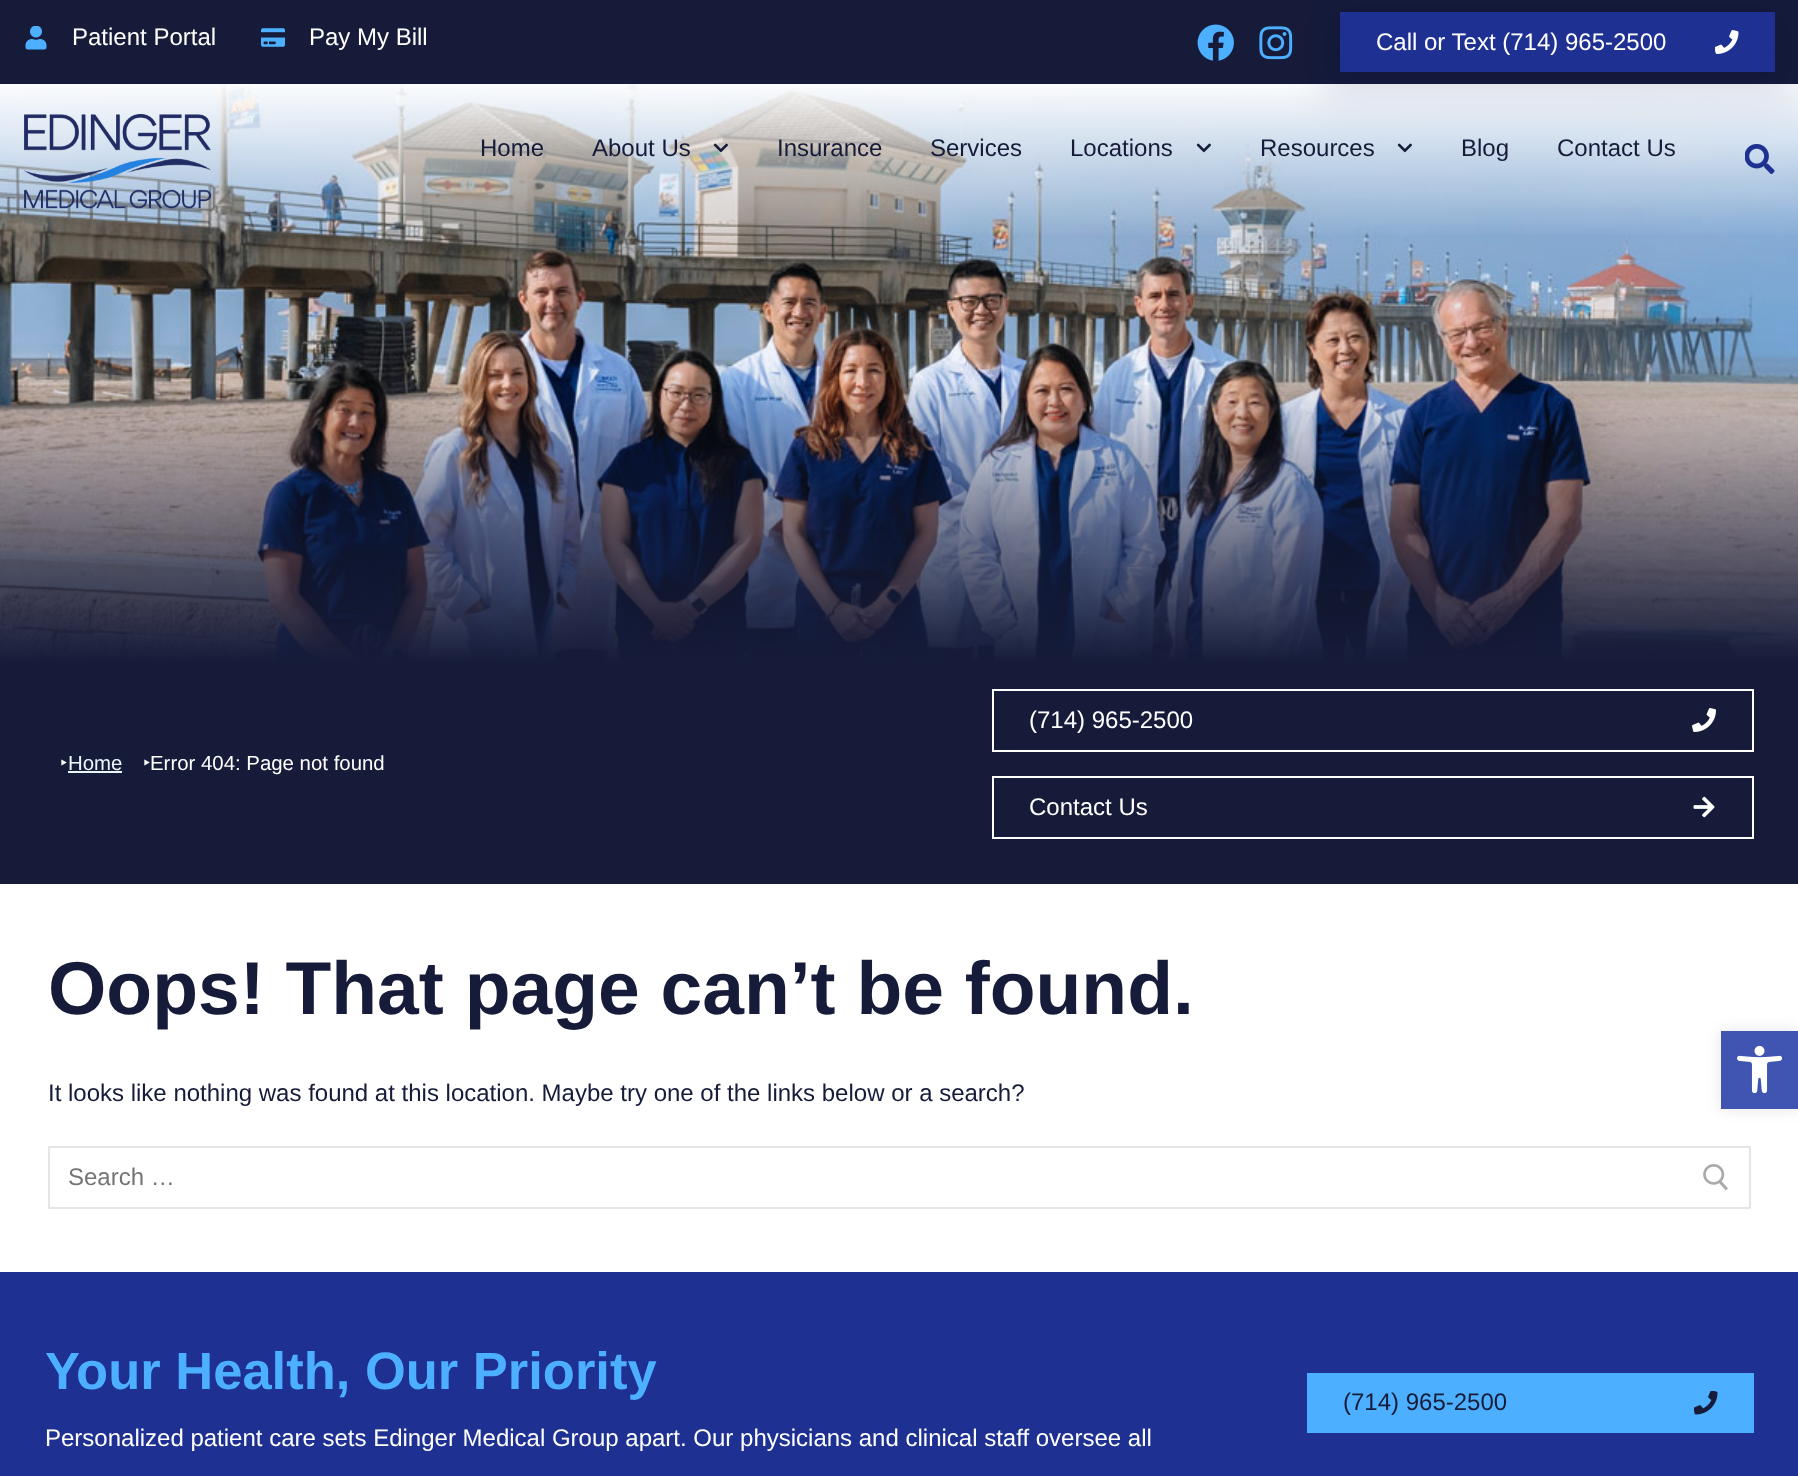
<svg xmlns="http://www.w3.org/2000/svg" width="1798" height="1476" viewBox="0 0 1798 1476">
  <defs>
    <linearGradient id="g1" gradientUnits="userSpaceOnUse" x1="899" y1="0" x2="899" y2="239"><stop offset="0.32" stop-color="#ffffff"/><stop offset="1" stop-color="#ffffff" stop-opacity="0"/></linearGradient>
    <filter id="blur1" x="-50%" y="-200%" width="200%" height="500%"><feGaussianBlur stdDeviation="19"/></filter>
    <linearGradient id="g2" gradientUnits="userSpaceOnUse" x1="899" y1="-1.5" x2="899" y2="884"><stop offset="0.43" stop-color="#151b39" stop-opacity="0"/><stop offset="0.75" stop-color="#151b39"/></linearGradient>
    <filter id="blur2" x="-50%" y="-200%" width="200%" height="500%"><feGaussianBlur stdDeviation="7.5"/></filter>
  </defs>
  <rect width="100%" height="100%" fill="#ffffff"/>
  <image x="0" y="84" width="1798" height="577" href="img11.png"/>
  <rect x="0" y="84" width="1798" height="151" fill="url(#g1)"/>
  <rect x="0" y="0" width="1798" height="84" fill="#151b39"/>
  <image x="25" y="26" width="22" height="24" href="img1.png"/>
  <text x="72" y="45" font-family="Liberation Sans" font-size="24" fill="#ffffff">Patient Portal</text>
  <image x="261" y="28" width="24" height="19" href="img2.png"/>
  <text x="309" y="45" font-family="Liberation Sans" font-size="24" fill="#ffffff">Pay My Bill</text>
  <image x="1197" y="24" width="37" height="37" href="img3.png"/>
  <image x="1259" y="26" width="34" height="34" href="img4.png"/>
  <rect x="1325" y="5" width="465" height="90" fill="#0d163f" fill-opacity="0.12" filter="url(#blur1)"/>
  <rect x="1340" y="12" width="435" height="60" fill="#1e3091"/>
  <text x="1376" y="50" font-family="Liberation Sans" font-size="24" fill="#ffffff">Call or Text (714) 965-2500</text>
  <image x="1715" y="30" width="24" height="24" href="img5.png"/>
  <image x="24" y="114" width="188" height="95" href="img6.png"/>
  <text x="480" y="156" font-family="Liberation Sans" font-size="24" fill="#151b39">Home</text>
  <text x="592" y="156" font-family="Liberation Sans" font-size="24" fill="#151b39">About Us</text>
  <image x="713" y="143" width="15" height="10" href="img7.png"/>
  <text x="777" y="156" font-family="Liberation Sans" font-size="24" fill="#151b39">Insurance</text>
  <text x="930" y="156" font-family="Liberation Sans" font-size="24" fill="#151b39">Services</text>
  <text x="1070" y="156" font-family="Liberation Sans" font-size="24" fill="#151b39">Locations</text>
  <image x="1196" y="143" width="15" height="10" href="img8.png"/>
  <text x="1260" y="156" font-family="Liberation Sans" font-size="24" fill="#151b39">Resources</text>
  <image x="1397" y="143" width="15" height="10" href="img9.png"/>
  <text x="1461" y="156" font-family="Liberation Sans" font-size="24" fill="#151b39">Blog</text>
  <text x="1557" y="156" font-family="Liberation Sans" font-size="24" fill="#151b39">Contact Us</text>
  <image x="1745" y="144" width="30" height="30" href="img10.png"/>
  <rect x="0" y="385" width="1798" height="499" fill="url(#g2)"/>
  <text x="60" y="770" font-family="Noto Sans" font-size="20.4" fill="#ffffff">‣</text>
  <text x="68" y="770" font-family="Liberation Sans" font-size="20.4" fill="#ebf7ff">Home</text>
  <rect x="68" y="771" width="54" height="2" fill="#ebf7ff"/>
  <text x="143" y="770" font-family="Noto Sans" font-size="20.4" fill="#ffffff">‣</text>
  <text x="150" y="770" font-family="Liberation Sans" font-size="20.4" fill="#ffffff">Error 404: Page not found</text>
  <rect x="993" y="690" width="760" height="61" fill="none" stroke="#ffffff" stroke-width="2"/>
  <text x="1029" y="728" font-family="Liberation Sans" font-size="24" fill="#ffffff">(714) 965-2500</text>
  <image x="1692" y="708" width="24" height="24" href="img12.png"/>
  <rect x="993" y="777" width="760" height="61" fill="none" stroke="#ffffff" stroke-width="2"/>
  <text x="1029" y="815" font-family="Liberation Sans" font-size="24" fill="#ffffff">Contact Us</text>
  <image x="1693" y="796" width="22" height="22" href="img13.png"/>
  <text x="48" y="1014" font-family="Liberation Sans" font-size="75" font-weight="bold" fill="#151b39">Oops! That page can’t be found.</text>
  <text x="48" y="1101" font-family="Liberation Sans" font-size="24" fill="#151b39">It looks like nothing was found at this location. Maybe try one of the links below or a search?</text>
  <rect x="49" y="1147" width="1701" height="61" rx="0.5" fill="none" stroke="#e5e5e5" stroke-width="2"/>
  <text x="68" y="1185" font-family="Liberation Sans" font-size="24" fill="#757575">Search …</text>
  <image x="1703" y="1164" width="25" height="27" href="img14.png"/>
  <rect x="0" y="1272" width="1798" height="204" fill="#1e3091"/>
  <text x="45" y="1389" font-family="Liberation Sans" font-size="52.5" font-weight="bold" fill="#4dafff">Your Health, Our Priority</text>
  <text x="45" y="1446" font-family="Liberation Sans" font-size="24" fill="#ffffff">Personalized patient care sets Edinger Medical Group apart. Our physicians and clinical staff oversee all</text>
  <rect x="1307" y="1373" width="447" height="60" fill="#4dafff"/>
  <text x="1343" y="1410" font-family="Liberation Sans" font-size="24" fill="#151b39">(714) 965-2500</text>
  <image x="1694" y="1391" width="24" height="24" href="img15.png"/>
  <rect x="1721" y="1031" width="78" height="78" fill="#000000" fill-opacity="0.1" filter="url(#blur2)"/>
  <rect x="1721" y="1031" width="77" height="78" fill="#4054b2"/>
  <image x="1737" y="1046" width="46" height="48" href="img16.png"/>
</svg>
